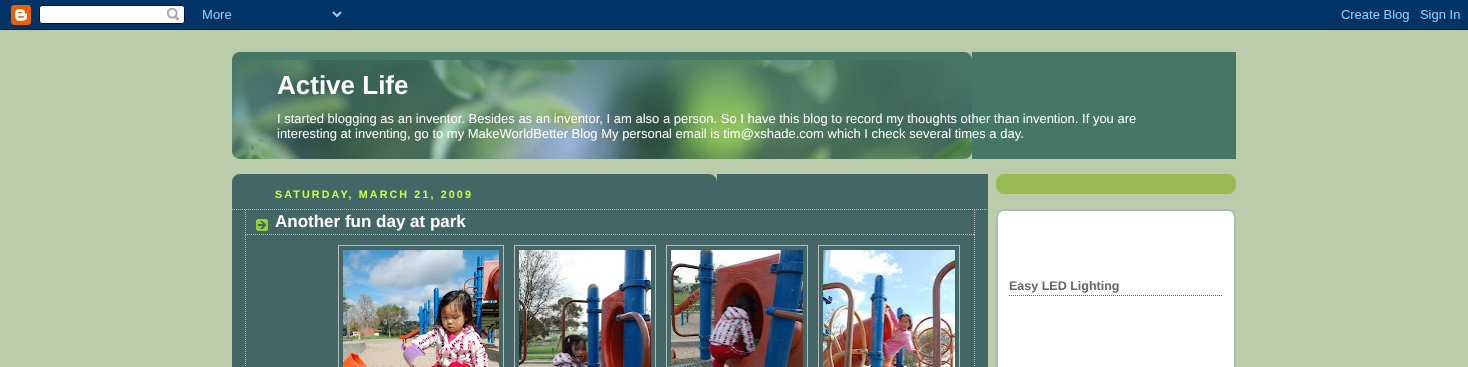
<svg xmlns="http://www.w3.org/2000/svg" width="1468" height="367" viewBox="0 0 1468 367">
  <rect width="100%" height="100%" fill="#bbccaa"/>
  <image x="0" y="0" width="1468" height="30" href="img1.png"/>
  <rect x="233" y="52" width="1003" height="107" fill="#447766"/>
  <image x="232" y="52" width="740" height="8" href="img2.png"/>
  <image x="232" y="60" width="740" height="99" href="img3.png"/>
  <text x="277" y="94" font-family="Liberation Sans" font-size="26" font-weight="bold" fill="#ffffff">Active Life</text>
  <text x="277" y="123" font-family="Liberation Sans" font-size="13" fill="#ffffff">I started blogging as an inventor. Besides as an inventor, I am also a person. So I have this blog to record my thoughts other than invention. If you are</text>
  <text x="277" y="138" font-family="Liberation Sans" font-size="13" fill="#ffffff">interesting at inventing, go to my MakeWorldBetter Blog My personal email is tim@xshade.com which I check several times a day.</text>
  <rect x="232" y="174" width="756" height="193" fill="#446666"/>
  <image x="232" y="174" width="485" height="8" href="img4.png"/>
  <text x="275" y="198" font-family="Liberation Sans" font-size="10.75" font-weight="bold" letter-spacing="2.1" fill="#ccff44">SATURDAY, MARCH 21, 2009</text>
  <path d="M232 209.5H988" fill="none" stroke="#bbbbbb" stroke-dasharray="1 1"/>
  <image x="256" y="219" width="12" height="12" href="img5.png"/>
  <path d="M974.5 210V235" fill="none" stroke="#bbbbbb" stroke-dasharray="1 1"/>
  <path d="M245 234.5H975" fill="none" stroke="#bbbbbb" stroke-dasharray="1 1"/>
  <path d="M245.5 210V235" fill="none" stroke="#bbbbbb" stroke-dasharray="1 1"/>
  <text x="275" y="227" font-family="Liberation Sans" font-size="17" font-weight="bold" fill="#ffffff">Another fun day at park</text>
  <path d="M974.5 235V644" fill="none" stroke="#bbbbbb" stroke-dasharray="1 1"/>
  <path d="M245.5 235V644" fill="none" stroke="#bbbbbb" stroke-dasharray="1 1"/>
  <rect x="338.5" y="245.5" width="165" height="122" fill="none" stroke="#bbbbbb"/>
  <image x="343" y="250" width="156" height="117" href="img6.png"/>
  <rect x="514.5" y="245.5" width="141" height="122" fill="none" stroke="#bbbbbb"/>
  <image x="519" y="250" width="132" height="117" href="img7.png"/>
  <rect x="666.5" y="245.5" width="141" height="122" fill="none" stroke="#bbbbbb"/>
  <image x="671" y="250" width="132" height="117" href="img8.png"/>
  <rect x="818.5" y="245.5" width="141" height="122" fill="none" stroke="#bbbbbb"/>
  <image x="823" y="250" width="132" height="117" href="img9.png"/>
  <rect x="996" y="174" width="240" height="20" fill="#99bb55"/>
  <image x="996" y="186" width="240" height="8" href="img10.png"/>
  <image x="996" y="174" width="240" height="8" href="img11.png"/>
  <rect x="998" y="211" width="236" height="156" fill="#ffffff"/>
  <image x="996" y="209" width="240" height="30" href="img12.png"/>
  <image x="996" y="239" width="240" height="128" href="img13.png"/>
  <path d="M1009 295.5H1223" fill="none" stroke="#666666" stroke-dasharray="1 1"/>
  <text x="1009" y="290" font-family="Liberation Sans" font-size="12.5" font-weight="bold" fill="#666666">Easy LED Lighting</text>
</svg>
